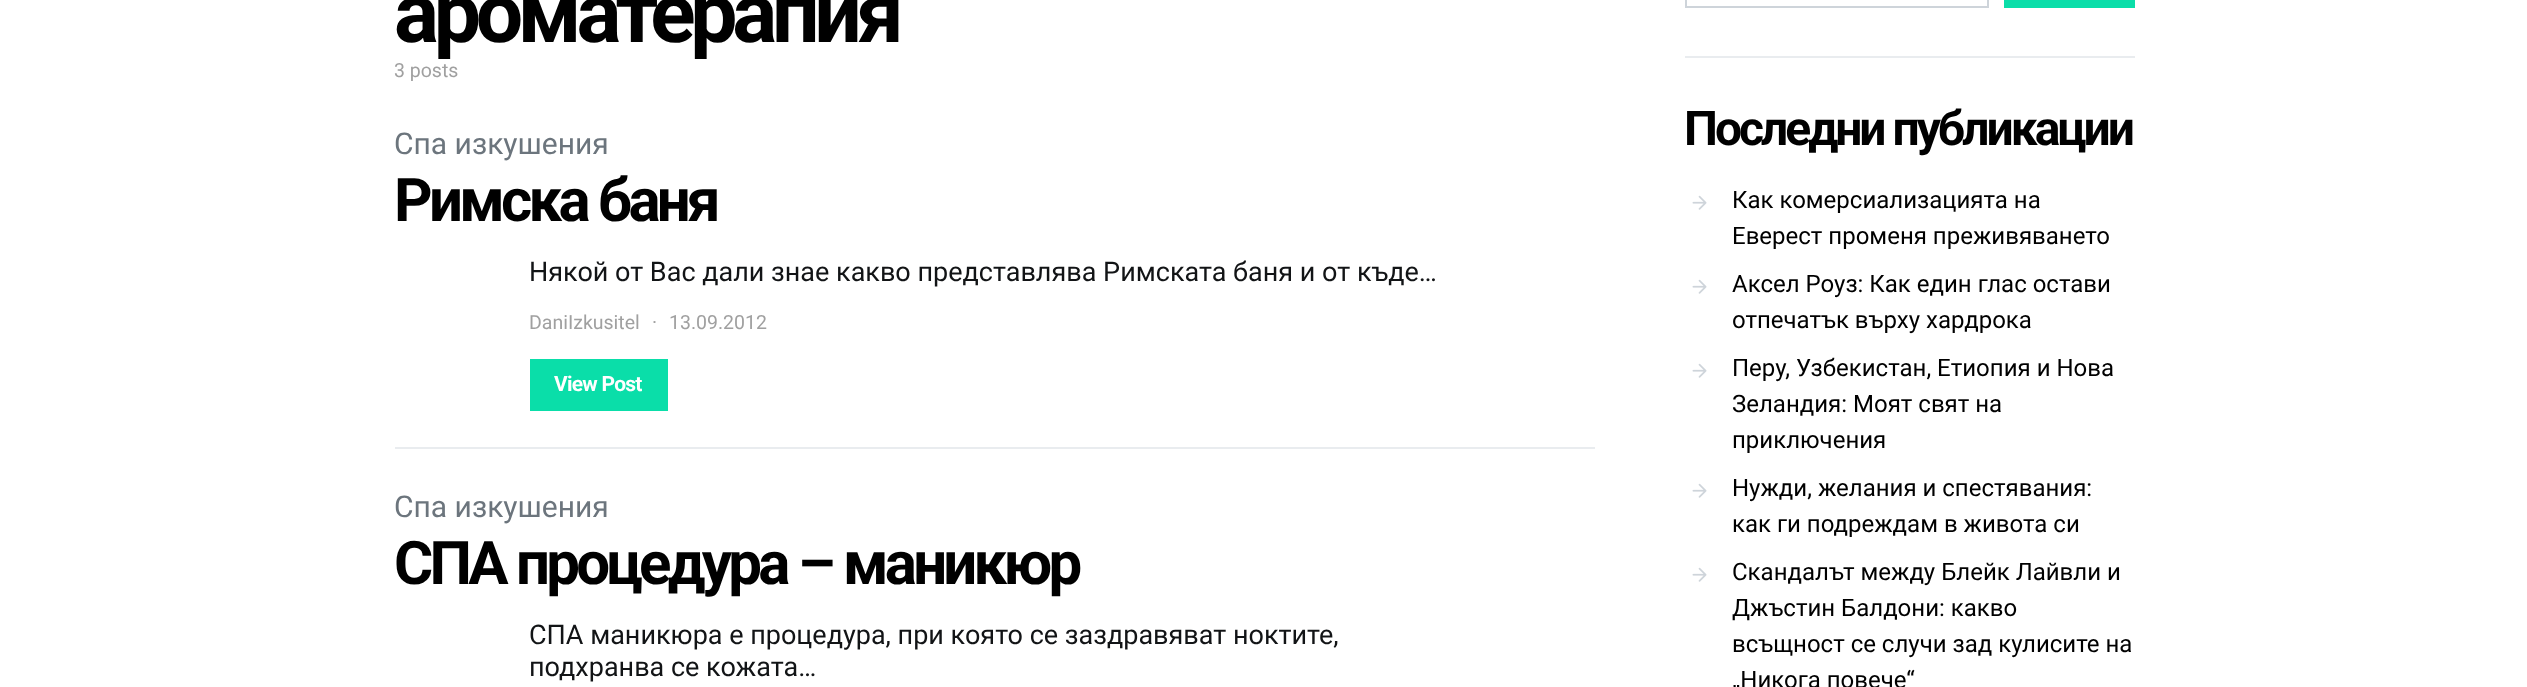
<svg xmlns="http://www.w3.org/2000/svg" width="2527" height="687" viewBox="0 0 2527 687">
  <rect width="100%" height="100%" fill="#ffffff"/>
  <text x="394" y="42" font-family="Roboto" font-size="84" font-weight="bold" letter-spacing="-5.25" fill="#000000">ароматерапия</text>
  <text x="394" y="77" font-family="Roboto" font-size="19.5" fill="#a0a0a0">3 posts</text>
  <text x="394" y="154" font-family="Roboto" font-size="30" fill="#6c757d">Спа изкушения</text>
  <text x="394" y="221" font-family="Roboto" font-size="60" font-weight="bold" letter-spacing="-3.75" fill="#000000">Римска баня</text>
  <text x="529" y="281" font-family="Roboto" font-size="27" fill="#121416">Някой от Вас дали знае какво представлява Римската баня и от къде…</text>
  <text x="529" y="329" font-family="Roboto" font-size="19.5" fill="#a0a0a0">DaniIzkusitel</text>
  <text x="652" y="329" font-family="Roboto" font-size="19.5" fill="#a0a0a0">·</text>
  <text x="669" y="329" font-family="Roboto" font-size="19.5" fill="#a0a0a0">13.09.2012</text>
  <rect x="530" y="359" width="138" height="52" fill="#0adea9"/>
  <text x="554" y="391" font-family="Roboto" font-size="21" font-weight="bold" letter-spacing="-0.75" fill="#ffffff">View Post</text>
  <rect x="395" y="447" width="1200" height="2" fill="#e9ecef"/>
  <text x="394" y="517" font-family="Roboto" font-size="30" fill="#6c757d">Спа изкушения</text>
  <text x="394" y="584" font-family="Roboto" font-size="60" font-weight="bold" letter-spacing="-3.75" fill="#000000">СПА процедура – маникюр</text>
  <text x="529" y="644" font-family="Roboto" font-size="27" fill="#121416">СПА маникюра е процедура, при която се заздравяват ноктите,</text>
  <text x="529" y="676" font-family="Roboto" font-size="27" fill="#121416">подхранва се кожата…</text>
  <rect x="1685" y="56" width="450" height="2" fill="#e9ecef"/>
  <rect x="1686" y="-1" width="302" height="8" fill="none" stroke="#ced4da" stroke-width="2"/>
  <rect x="2004" y="0" width="131" height="8" fill="#0adea9"/>
  <text x="1684" y="145" font-family="Roboto" font-size="48" font-weight="bold" letter-spacing="-3" fill="#000000">Последни публикации</text>
  <image x="1692" y="195" width="15" height="15" href="img1.png"/>
  <text x="1732" y="208" font-family="Roboto" font-size="24" fill="#000000">Как комерсиализацията на</text>
  <text x="1732" y="244" font-family="Roboto" font-size="24" fill="#000000">Еверест променя преживяването</text>
  <image x="1692" y="279" width="15" height="15" href="img1.png"/>
  <text x="1732" y="292" font-family="Roboto" font-size="24" fill="#000000">Аксел Роуз: Как един глас остави</text>
  <text x="1732" y="328" font-family="Roboto" font-size="24" fill="#000000">отпечатък върху хардрока</text>
  <image x="1692" y="363" width="15" height="15" href="img1.png"/>
  <text x="1732" y="376" font-family="Roboto" font-size="24" fill="#000000">Перу, Узбекистан, Етиопия и Нова</text>
  <text x="1732" y="412" font-family="Roboto" font-size="24" fill="#000000">Зеландия: Моят свят на</text>
  <text x="1732" y="448" font-family="Roboto" font-size="24" fill="#000000">приключения</text>
  <image x="1692" y="483" width="15" height="15" href="img1.png"/>
  <text x="1732" y="496" font-family="Roboto" font-size="24" fill="#000000">Нужди, желания и спестявания:</text>
  <text x="1732" y="532" font-family="Roboto" font-size="24" fill="#000000">как ги подреждам в живота си</text>
  <image x="1692" y="567" width="15" height="15" href="img1.png"/>
  <text x="1732" y="580" font-family="Roboto" font-size="24" fill="#000000">Скандалът между Блейк Лайвли и</text>
  <text x="1732" y="616" font-family="Roboto" font-size="24" fill="#000000">Джъстин Балдони: какво</text>
  <text x="1732" y="652" font-family="Roboto" font-size="24" fill="#000000">всъщност се случи зад кулисите на</text>
  <text x="1732" y="688" font-family="Roboto" font-size="24" fill="#000000">„Никога повече“</text>
</svg>
